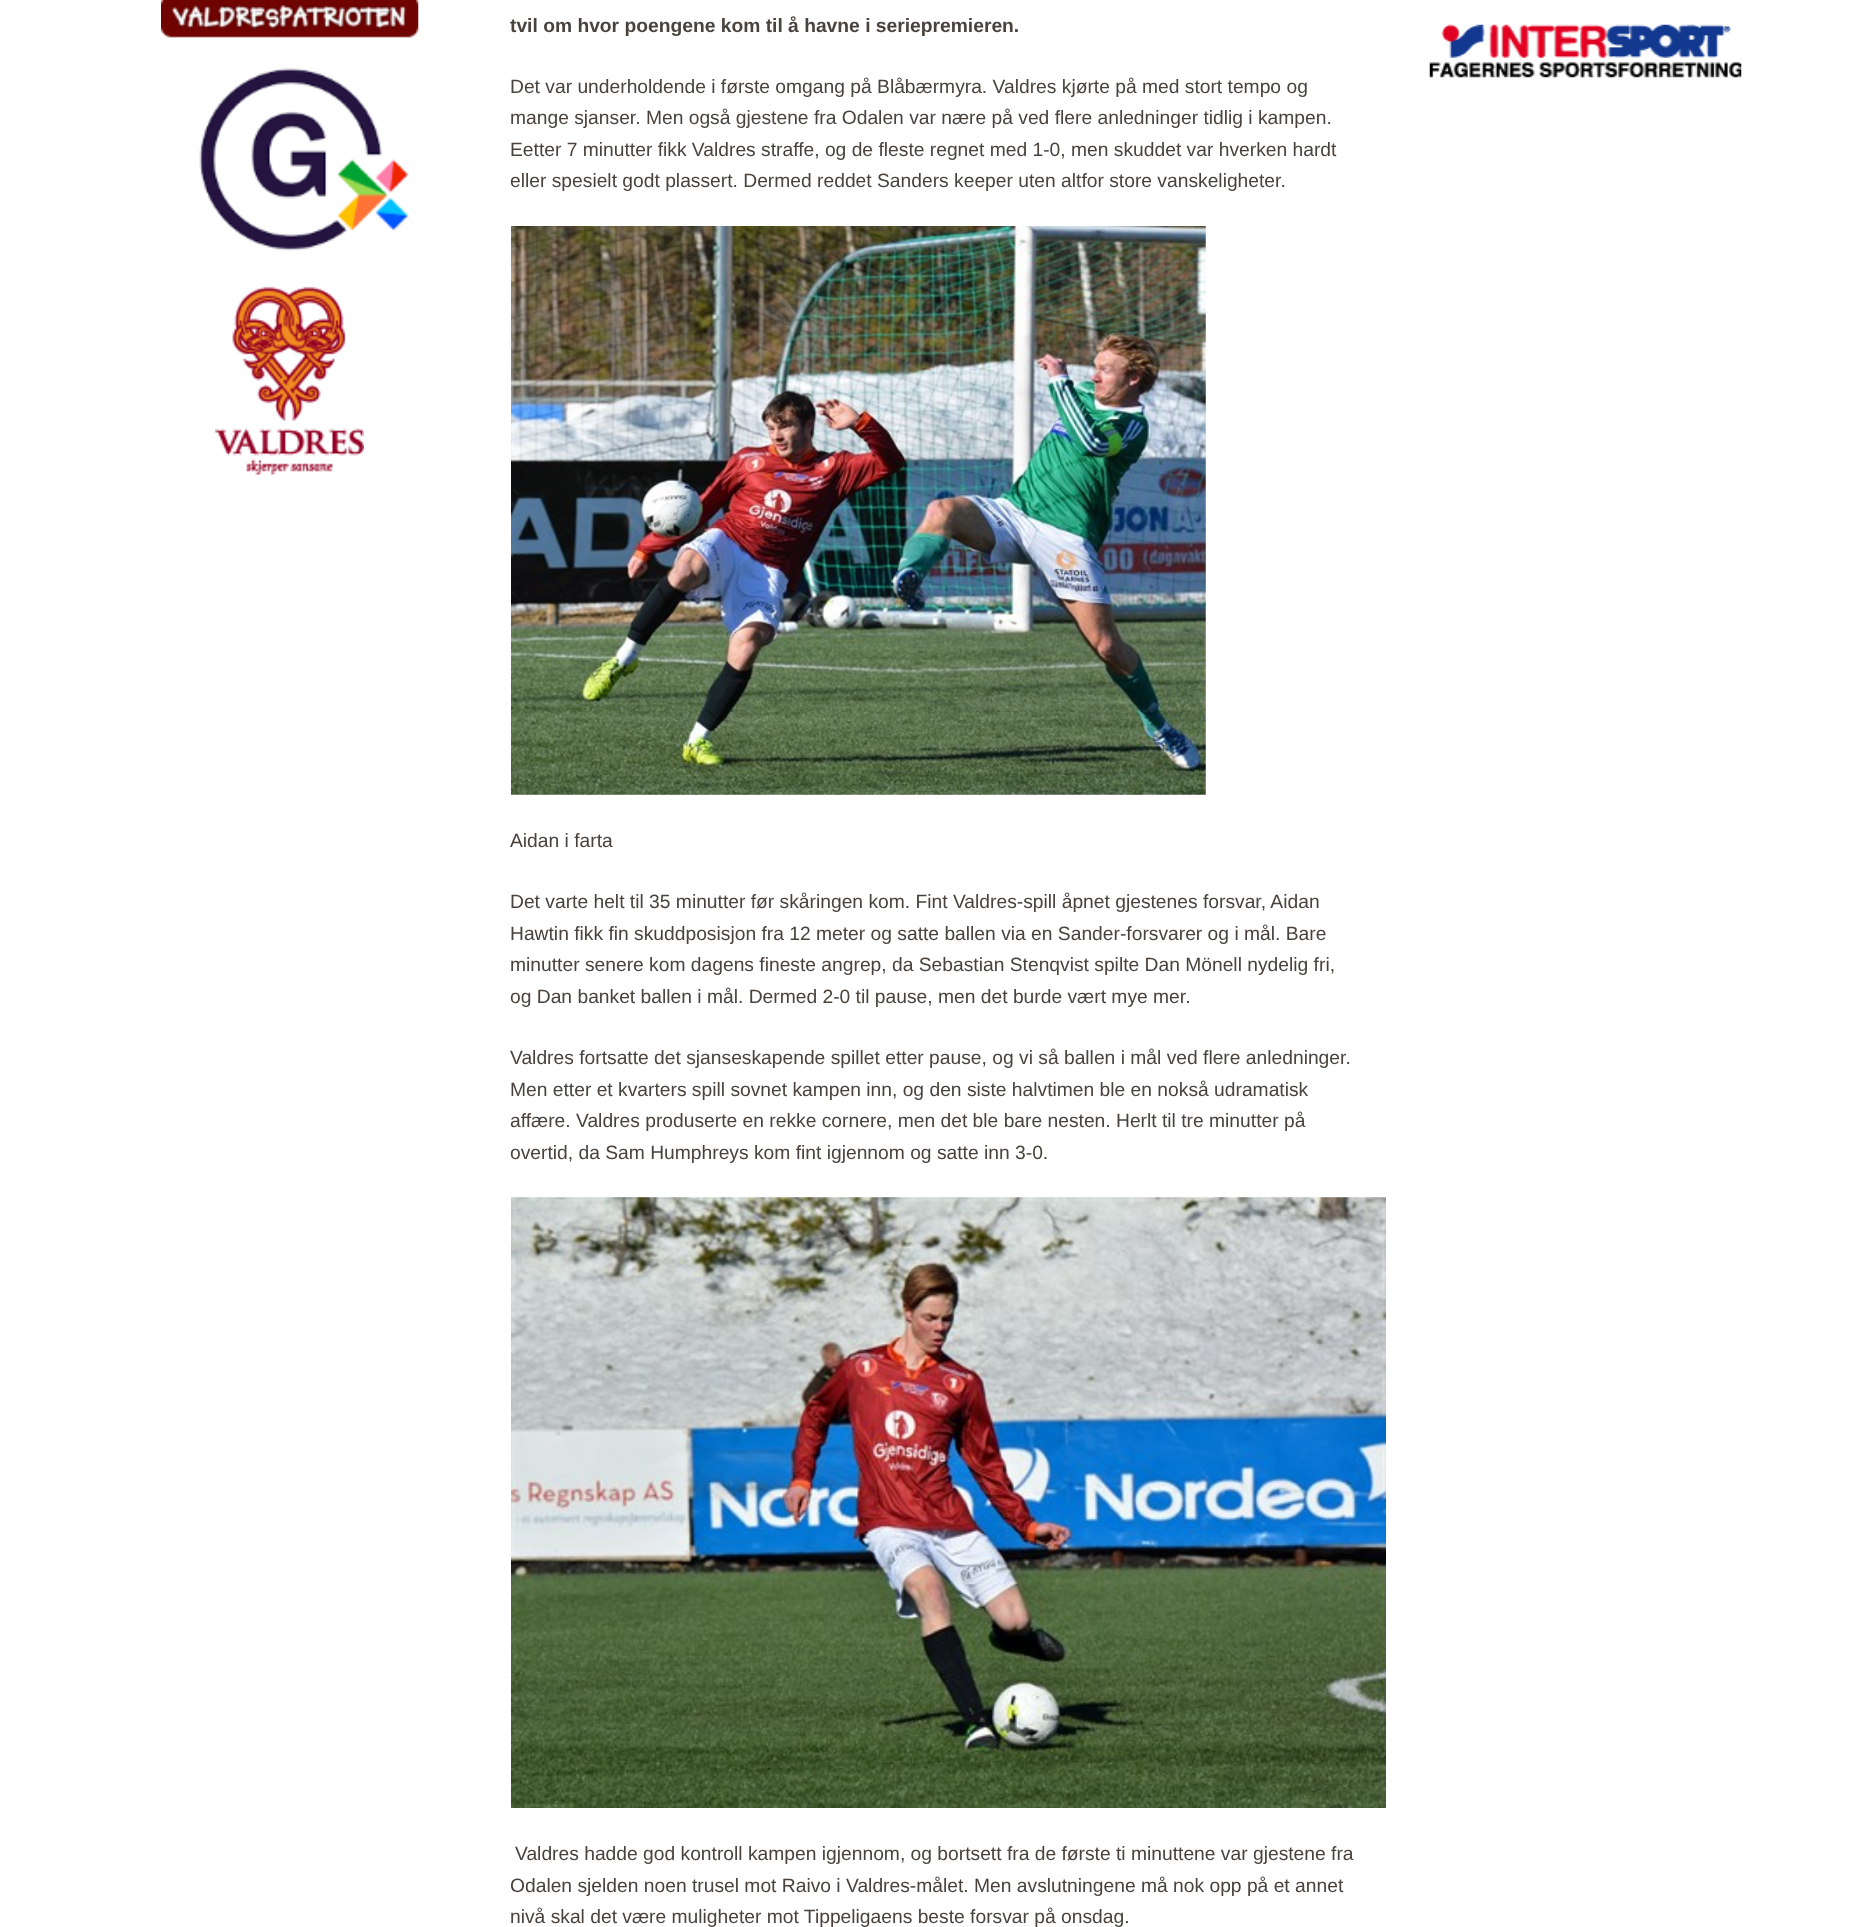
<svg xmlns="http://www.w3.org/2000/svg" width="1867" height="1927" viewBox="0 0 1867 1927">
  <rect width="100%" height="100%" fill="#ffffff"/>
  <image x="161" y="0" width="258" height="38" href="img1.png"/>
  <image x="199" y="68" width="210" height="183" href="img2.png"/>
  <image x="215" y="286" width="149" height="189" href="img3.png"/>
  <text x="510" y="32" font-family="Liberation Sans" font-size="19.25" font-weight="bold" fill="#49423d">tvil om hvor poengene kom til å havne i seriepremieren.</text>
  <text x="510" y="93" font-family="Liberation Sans" font-size="19.25" fill="#49423d">Det var underholdende i første omgang på Blåbærmyra. Valdres kjørte på med stort tempo og</text>
  <text x="510" y="124" font-family="Liberation Sans" font-size="19.25" fill="#49423d">mange sjanser. Men også gjestene fra Odalen var nære på ved flere anledninger tidlig i kampen.</text>
  <text x="510" y="156" font-family="Liberation Sans" font-size="19.25" fill="#49423d">Eetter 7 minutter fikk Valdres straffe, og de fleste regnet med 1-0, men skuddet var hverken hardt</text>
  <text x="510" y="187" font-family="Liberation Sans" font-size="19.25" fill="#49423d">eller spesielt godt plassert. Dermed reddet Sanders keeper uten altfor store vanskeligheter.</text>
  <image x="511" y="226" width="695" height="569" href="img4.png"/>
  <text x="510" y="847" font-family="Liberation Sans" font-size="19.25" fill="#49423d">Aidan i farta</text>
  <text x="510" y="908" font-family="Liberation Sans" font-size="19.25" fill="#49423d">Det varte helt til 35 minutter før skåringen kom. Fint Valdres-spill åpnet gjestenes forsvar, Aidan</text>
  <text x="510" y="940" font-family="Liberation Sans" font-size="19.25" fill="#49423d">Hawtin fikk fin skuddposisjon fra 12 meter og satte ballen via en Sander-forsvarer og i mål. Bare</text>
  <text x="510" y="971" font-family="Liberation Sans" font-size="19.25" fill="#49423d">minutter senere kom dagens fineste angrep, da Sebastian Stenqvist spilte Dan Mönell nydelig fri,</text>
  <text x="510" y="1003" font-family="Liberation Sans" font-size="19.25" fill="#49423d">og Dan banket ballen i mål. Dermed 2-0 til pause, men det burde vært mye mer.</text>
  <text x="510" y="1064" font-family="Liberation Sans" font-size="19.25" fill="#49423d">Valdres fortsatte det sjanseskapende spillet etter pause, og vi så ballen i mål ved flere anledninger.</text>
  <text x="510" y="1096" font-family="Liberation Sans" font-size="19.25" fill="#49423d">Men etter et kvarters spill sovnet kampen inn, og den siste halvtimen ble en nokså udramatisk</text>
  <text x="510" y="1127" font-family="Liberation Sans" font-size="19.25" fill="#49423d">affære. Valdres produserte en rekke cornere, men det ble bare nesten. Herlt til tre minutter på</text>
  <text x="510" y="1159" font-family="Liberation Sans" font-size="19.25" fill="#49423d">overtid, da Sam Humphreys kom fint igjennom og satte inn 3-0.</text>
  <image x="511" y="1197" width="875" height="611" href="img5.png"/>
  <text x="515" y="1860" font-family="Liberation Sans" font-size="19.25" fill="#49423d">Valdres hadde god kontroll kampen igjennom, og bortsett fra de første ti minuttene var gjestene fra</text>
  <text x="510" y="1892" font-family="Liberation Sans" font-size="19.25" fill="#49423d">Odalen sjelden noen trusel mot Raivo i Valdres-målet. Men avslutningene må nok opp på et annet</text>
  <text x="510" y="1923" font-family="Liberation Sans" font-size="19.25" fill="#49423d">nivå skal det være muligheter mot Tippeligaens beste forsvar på onsdag.</text>
  <image x="1429" y="24" width="313" height="54" href="img6.png"/>
</svg>
